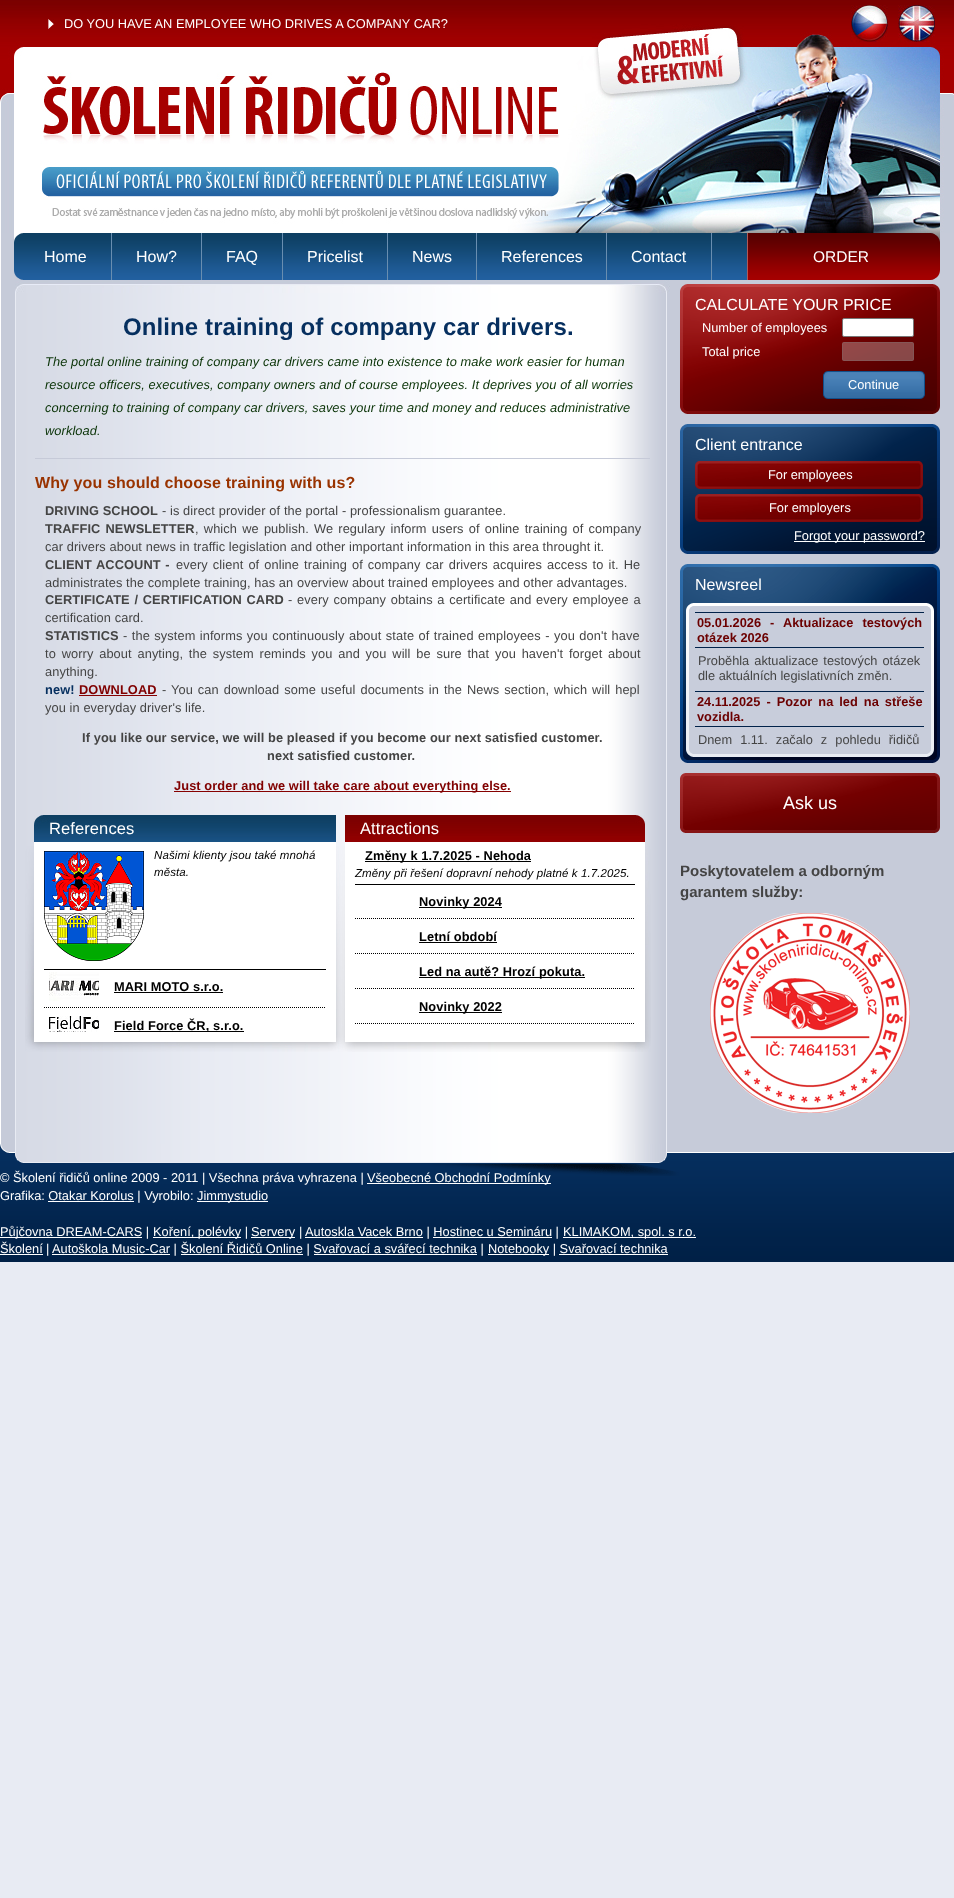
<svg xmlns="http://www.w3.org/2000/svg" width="954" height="1898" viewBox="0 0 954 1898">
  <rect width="100%" height="100%" fill="#e8ebf3"/>
  <image x="0" y="0" width="954" height="233" href="img1.png"/>
  <image x="48" y="19" width="6" height="10" href="img2.png"/>
  <text x="64" y="28" font-family="Liberation Sans" font-size="12.8" fill="#ffffff">DO YOU HAVE AN EMPLOYEE WHO DRIVES A COMPANY CAR?</text>
  <image x="851" y="5" width="37" height="37" href="img3.png"/>
  <image x="898" y="5" width="37" height="37" href="img4.png"/>
  <image x="0" y="233" width="954" height="47" href="img7.png"/>
  <image x="748" y="233" width="192" height="47" href="img5.png"/>
  <rect x="747" y="233" width="1" height="47" fill="#ae5959"/>
  <text x="813" y="262" font-family="Liberation Sans" font-size="15.5" fill="#ffffff">ORDER</text>
  <image x="0" y="280" width="954" height="864" href="img6.png"/>
  <rect x="111" y="233" width="1" height="47" fill="#698eb0"/>
  <text x="44" y="262" font-family="Liberation Sans" font-size="16" fill="#ffffff">Home</text>
  <rect x="201" y="233" width="1" height="47" fill="#698eb0"/>
  <text x="136" y="262" font-family="Liberation Sans" font-size="16" fill="#ffffff">How?</text>
  <rect x="282" y="233" width="1" height="47" fill="#698eb0"/>
  <text x="226" y="262" font-family="Liberation Sans" font-size="16" fill="#ffffff">FAQ</text>
  <rect x="387" y="233" width="1" height="47" fill="#698eb0"/>
  <text x="307" y="262" font-family="Liberation Sans" font-size="16" fill="#ffffff">Pricelist</text>
  <rect x="476" y="233" width="1" height="47" fill="#698eb0"/>
  <text x="412" y="262" font-family="Liberation Sans" font-size="16" fill="#ffffff">News</text>
  <rect x="606" y="233" width="1" height="47" fill="#698eb0"/>
  <text x="501" y="262" font-family="Liberation Sans" font-size="16" fill="#ffffff">References</text>
  <rect x="711" y="233" width="1" height="47" fill="#698eb0"/>
  <text x="631" y="262" font-family="Liberation Sans" font-size="16" fill="#ffffff">Contact</text>
  <image x="15" y="280" width="655" height="13" href="img8.png"/>
  <text x="123" y="335" font-family="Liberation Sans" font-size="24" font-weight="bold" letter-spacing="0.1" fill="#062f5f">Online training of company car drivers.</text>
  <text x="45" y="366" font-family="Liberation Sans" font-size="12.8" font-style="italic" letter-spacing="0.1" fill="#0a3307">The portal online training of company car drivers came into existence to make work easier for human</text>
  <text x="45" y="389" font-family="Liberation Sans" font-size="12.8" font-style="italic" letter-spacing="0.1" fill="#0a3307">resource officers, executives, company owners and of course employees. It deprives you of all worries</text>
  <text x="45" y="412" font-family="Liberation Sans" font-size="12.8" font-style="italic" letter-spacing="0.1" fill="#0a3307">concerning to training of company car drivers, saves your time and money and reduces administrative</text>
  <text x="45" y="435" font-family="Liberation Sans" font-size="12.8" font-style="italic" letter-spacing="0.1" fill="#0a3307">workload.</text>
  <rect x="35" y="458" width="615" height="1" fill="#c6cad8"/>
  <text x="35" y="488" font-family="Liberation Sans" font-size="16" font-weight="bold" letter-spacing="0.1" fill="#993300">Why you should choose training with us?</text>
  <text x="45" y="515" font-family="Liberation Sans" font-size="12.8" font-weight="bold" letter-spacing="0.1" fill="#444444">DRIVING SCHOOL</text>
  <text x="162" y="515" font-family="Liberation Sans" font-size="12.8" letter-spacing="0.1" fill="#444444">- is direct provider of the portal - professionalism guarantee.</text>
  <text x="45" y="533" word-spacing="1.4" font-family="Liberation Sans" font-size="12.8" font-weight="bold" letter-spacing="0.1" fill="#444444">TRAFFIC NEWSLETTER</text>
  <text x="195" y="533" word-spacing="1.5" font-family="Liberation Sans" font-size="12.8" letter-spacing="0.1" fill="#444444">, which we publish. We regulary inform users of online training of company</text>
  <text x="45" y="551" font-family="Liberation Sans" font-size="12.8" letter-spacing="0.1" fill="#444444">car drivers about news in traffic legislation and other important information in this area throught it.</text>
  <text x="45" y="569" word-spacing="1" font-family="Liberation Sans" font-size="12.8" font-weight="bold" letter-spacing="0.1" fill="#444444">CLIENT ACCOUNT -</text>
  <text x="176" y="569" word-spacing="1.4" font-family="Liberation Sans" font-size="12.8" letter-spacing="0.1" fill="#444444">every client of online training of company car drivers acquires access to it. He</text>
  <text x="45" y="587" font-family="Liberation Sans" font-size="12.8" letter-spacing="0.1" fill="#444444">administrates the complete training, has an overview about trained employees and other advantages.</text>
  <text x="45" y="604" word-spacing="1" font-family="Liberation Sans" font-size="12.8" font-weight="bold" letter-spacing="0.1" fill="#444444">CERTIFICATE / CERTIFICATION CARD</text>
  <text x="288" y="604" word-spacing="1" font-family="Liberation Sans" font-size="12.8" letter-spacing="0.1" fill="#444444">- every company obtains a certificate and every employee a</text>
  <text x="45" y="622" font-family="Liberation Sans" font-size="12.8" letter-spacing="0.1" fill="#444444">certification card.</text>
  <text x="45" y="640" font-family="Liberation Sans" font-size="12.8" font-weight="bold" letter-spacing="0.1" fill="#444444">STATISTICS</text>
  <text x="123" y="640" word-spacing="0.75" font-family="Liberation Sans" font-size="12.8" letter-spacing="0.1" fill="#444444">- the system informs you continuously about state of trained employees - you don't have</text>
  <text x="45" y="658" word-spacing="2.1" font-family="Liberation Sans" font-size="12.8" letter-spacing="0.1" fill="#444444">to worry about anyting, the system reminds you and you will be sure that you haven't forget about</text>
  <text x="45" y="676" font-family="Liberation Sans" font-size="12.8" letter-spacing="0.1" fill="#444444">anything.</text>
  <text x="45" y="694" font-family="Liberation Sans" font-size="12.8" font-weight="bold" letter-spacing="0.1" fill="#062f5f">new!</text>
  <text x="79" y="694" font-family="Liberation Sans" font-size="12.8" font-weight="bold" letter-spacing="0.1" fill="#800000">DOWNLOAD</text>
  <rect x="79" y="695" width="78" height="1" fill="#860101"/>
  <text x="162" y="694" word-spacing="1.25" font-family="Liberation Sans" font-size="12.8" letter-spacing="0.1" fill="#444444">- You can download some useful documents in the News section, which will hepl</text>
  <text x="45" y="712" font-family="Liberation Sans" font-size="12.8" letter-spacing="0.1" fill="#444444">you in everyday driver's life.</text>
  <text x="82" y="742" font-family="Liberation Sans" font-size="12.8" font-weight="bold" letter-spacing="0.1" fill="#444444">If you like our service, we will be pleased if you become our next satisfied customer.</text>
  <text x="267" y="760" font-family="Liberation Sans" font-size="12.8" font-weight="bold" letter-spacing="0.1" fill="#444444">next satisfied customer.</text>
  <rect x="174" y="791" width="337" height="1" fill="#860101"/>
  <text x="174" y="790" font-family="Liberation Sans" font-size="12.8" font-weight="bold" letter-spacing="0.1" fill="#800000">Just order and we will take care about everything else</text>
  <text x="507" y="790" font-family="Liberation Sans" font-size="12.8" font-weight="bold" letter-spacing="0.1" fill="#860101">.</text>
  <image x="25" y="846" width="626" height="206" href="img9.png"/>
  <image x="34" y="815" width="611" height="27" href="img10.png"/>
  <text x="49" y="834" font-family="Liberation Sans" font-size="16.5" letter-spacing="0.1" fill="#ffffff">References</text>
  <rect x="34" y="842" width="302" height="200" fill="#ffffff"/>
  <rect x="44" y="969" width="282" height="1" fill="#000000"/>
  <image x="44" y="851" width="100" height="110" href="img11.png"/>
  <text x="154" y="859" font-family="Liberation Sans" font-size="11.5" font-style="italic" letter-spacing="0.1" fill="#000000">Našimi klienty jsou také mnohá</text>
  <text x="154" y="876" font-family="Liberation Sans" font-size="11.5" font-style="italic" letter-spacing="0.1" fill="#000000">města.</text>
  <path d="M44 1007.5H326" fill="none" stroke="#000000" stroke-dasharray="1 1"/>
  <image x="49" y="972" width="50" height="29" href="img12.png"/>
  <text x="114" y="991" font-family="Liberation Sans" font-size="12.8" font-weight="bold" letter-spacing="0.1" fill="#000000">MARI MOTO s.r.o.</text>
  <rect x="114" y="992" width="109" height="1" fill="#000000"/>
  <image x="49" y="1016" width="50" height="16" href="img13.png"/>
  <rect x="114" y="1031" width="130" height="1" fill="#000000"/>
  <text x="114" y="1030" font-family="Liberation Sans" font-size="12.8" font-weight="bold" letter-spacing="0.1" fill="#000000">Field Force ČR, s.r.o.</text>
  <text x="360" y="834" font-family="Liberation Sans" font-size="16.5" letter-spacing="0.1" fill="#ffffff">Attractions</text>
  <rect x="345" y="842" width="300" height="200" fill="#ffffff"/>
  <rect x="355" y="884" width="280" height="1" fill="#000000"/>
  <rect x="365" y="861" width="166" height="1" fill="#000000"/>
  <text x="365" y="860" font-family="Liberation Sans" font-size="12.8" font-weight="bold" letter-spacing="0.1" fill="#000000">Změny k 1.7.2025 - Nehoda</text>
  <text x="355" y="877" font-family="Liberation Sans" font-size="11.5" font-style="italic" letter-spacing="0.1" fill="#000000">Změny při řešení dopravní nehody platné k 1.7.2025.</text>
  <path d="M355 918.5H635" fill="none" stroke="#000000" stroke-dasharray="1 1"/>
  <rect x="419" y="907" width="83" height="1" fill="#000000"/>
  <text x="419" y="906" font-family="Liberation Sans" font-size="12.8" font-weight="bold" letter-spacing="0.1" fill="#000000">Novinky 2024</text>
  <path d="M355 953.5H635" fill="none" stroke="#000000" stroke-dasharray="1 1"/>
  <text x="419" y="941" font-family="Liberation Sans" font-size="12.8" font-weight="bold" letter-spacing="0.1" fill="#000000">Letní období</text>
  <rect x="419" y="942" width="78" height="1" fill="#000000"/>
  <path d="M355 988.5H635" fill="none" stroke="#000000" stroke-dasharray="1 1"/>
  <rect x="419" y="977" width="166" height="1" fill="#000000"/>
  <text x="419" y="976" font-family="Liberation Sans" font-size="12.8" font-weight="bold" letter-spacing="0.1" fill="#000000">Led na autě? Hrozí pokuta.</text>
  <path d="M355 1023.5H635" fill="none" stroke="#000000" stroke-dasharray="1 1"/>
  <rect x="419" y="1012" width="83" height="1" fill="#000000"/>
  <text x="419" y="1011" font-family="Liberation Sans" font-size="12.8" font-weight="bold" letter-spacing="0.1" fill="#000000">Novinky 2022</text>
  <image x="680" y="284" width="260" height="130" href="img14.png"/>
  <text x="695" y="310" font-family="Liberation Sans" font-size="16" fill="#ffffff">CALCULATE YOUR PRICE</text>
  <text x="702" y="332" font-family="Liberation Sans" font-size="12.8" fill="#ffffff">Number of employees</text>
  <rect x="842.5" y="318.5" width="71" height="18" rx="1.5" fill="#ffffff" stroke="#767676"/>
  <text x="702" y="356" font-family="Liberation Sans" font-size="12.8" fill="#ffffff">Total price</text>
  <rect x="842" y="342" width="72" height="19" rx="2" fill="#efefef" fill-opacity="0.3"/>
  <rect x="842.5" y="342.5" width="71" height="18" rx="1.5" fill="none" stroke="#767676" stroke-opacity="0.3"/>
  <image x="823" y="371" width="102" height="28" href="img15.png"/>
  <text x="848" y="389" font-family="Liberation Sans" font-size="12.8" fill="#ffffff">Continue</text>
  <image x="680" y="424" width="260" height="130" href="img16.png"/>
  <text x="695" y="450" font-family="Liberation Sans" font-size="16" fill="#ffffff">Client entrance</text>
  <image x="695" y="461" width="228" height="28" href="img17.png"/>
  <text x="768" y="479" font-family="Liberation Sans" font-size="12.8" fill="#ffffff">For employees</text>
  <image x="695" y="494" width="228" height="28" href="img18.png"/>
  <text x="769" y="512" font-family="Liberation Sans" font-size="12.8" fill="#ffffff">For employers</text>
  <rect x="794" y="541" width="131" height="1" fill="#ffffff"/>
  <text x="794" y="540" font-family="Liberation Sans" font-size="12.8" fill="#ffffff">Forgot your password?</text>
  <image x="680" y="564" width="260" height="199" href="img19.png"/>
  <text x="695" y="590" font-family="Liberation Sans" font-size="16" fill="#ffffff">Newsreel</text>
  <rect x="695" y="612" width="229" height="1" fill="#01224a"/>
  <rect x="695" y="647" width="229" height="1" fill="#01224a"/>
  <text x="697" y="627" word-spacing="5.5" font-family="Liberation Sans" font-size="12.8" font-weight="bold" fill="#6b0000">05.01.2026 - Aktualizace testových</text>
  <text x="697" y="642" font-family="Liberation Sans" font-size="12.8" font-weight="bold" fill="#6b0000">otázek 2026</text>
  <text x="698" y="665" word-spacing="1.5" font-family="Liberation Sans" font-size="12.8" fill="#444444">Proběhla aktualizace testových otázek</text>
  <text x="698" y="680" font-family="Liberation Sans" font-size="12.8" fill="#444444">dle aktuálních legislativních změn.</text>
  <rect x="695" y="691" width="229" height="1" fill="#01224a"/>
  <rect x="695" y="726" width="229" height="1" fill="#01224a"/>
  <text x="697" y="706" word-spacing="2.5" font-family="Liberation Sans" font-size="12.8" font-weight="bold" fill="#6b0000">24.11.2025 - Pozor na led na střeše</text>
  <text x="697" y="721" font-family="Liberation Sans" font-size="12.8" font-weight="bold" fill="#6b0000">vozidla.</text>
  <text x="698" y="744" word-spacing="4.5" font-family="Liberation Sans" font-size="12.8" fill="#444444">Dnem 1.11. začalo z pohledu řidičů</text>
  <image x="680" y="773" width="260" height="60" href="img20.png"/>
  <text x="783" y="809" font-family="Liberation Sans" font-size="18" fill="#ffffff">Ask us</text>
  <text x="680" y="876" font-family="Liberation Sans" font-size="15" font-weight="bold" fill="#444444">Poskytovatelem a odborným</text>
  <text x="680" y="897" font-family="Liberation Sans" font-size="15" font-weight="bold" fill="#444444">garantem služby:</text>
  <image x="710" y="913" width="200" height="200" href="img21.png"/>
  <image x="0" y="1176" width="954" height="125" href="img22.png"/>
  <image x="0" y="1144" width="954" height="32" href="img23.png"/>
  <text x="0" y="1182" font-family="Liberation Sans" font-size="12.8" fill="#ffffff">© Školení řidičů online 2009 - 2011 | Všechna práva vyhrazena |</text>
  <rect x="367" y="1183" width="184" height="1" fill="#ffffff"/>
  <text x="367" y="1182" font-family="Liberation Sans" font-size="12.8" fill="#ffffff">Všeobecné Obchodní Podmínky</text>
  <text x="0" y="1200" font-family="Liberation Sans" font-size="12.8" fill="#ffffff">Grafika: Otakar Korolus | Vyrobilo:</text>
  <rect x="197" y="1201" width="71" height="1" fill="#ffffff"/>
  <text x="197" y="1200" font-family="Liberation Sans" font-size="12.8" fill="#ffffff">Jimmystudio</text>
  <rect x="48" y="1201" width="86" height="1" fill="#ffffff"/>
  <rect x="0" y="1237" width="142" height="1" fill="#ffffff"/>
  <text x="0" y="1236" font-family="Liberation Sans" font-size="12.8" fill="#ffffff">Půjčovna DREAM-CARS |</text>
  <rect x="153" y="1237" width="88" height="1" fill="#ffffff"/>
  <text x="153" y="1236" font-family="Liberation Sans" font-size="12.8" fill="#ffffff">Koření, polévky |</text>
  <rect x="251" y="1237" width="44" height="1" fill="#ffffff"/>
  <text x="251" y="1236" font-family="Liberation Sans" font-size="12.8" fill="#ffffff">Servery</text>
  <text x="299" y="1236" font-family="Liberation Sans" font-size="12.8" fill="#ffffff">|</text>
  <rect x="305" y="1237" width="118" height="1" fill="#ffffff"/>
  <text x="305" y="1236" font-family="Liberation Sans" font-size="12.8" fill="#ffffff">Autoskla Vacek Brno | Hostinec u Semináru |</text>
  <rect x="563" y="1237" width="133" height="1" fill="#ffffff"/>
  <text x="563" y="1236" font-family="Liberation Sans" font-size="12.8" fill="#ffffff">KLIMAKOM, spol. s r.o.</text>
  <rect x="433" y="1237" width="119" height="1" fill="#ffffff"/>
  <text x="0" y="1253" font-family="Liberation Sans" font-size="12.8" fill="#ffffff">Školení</text>
  <rect x="0" y="1254" width="43" height="1" fill="#ffffff"/>
  <text x="46" y="1253" font-family="Liberation Sans" font-size="12.8" fill="#ffffff">|</text>
  <rect x="52" y="1254" width="118" height="1" fill="#ffffff"/>
  <text x="52" y="1253" font-family="Liberation Sans" font-size="12.8" fill="#ffffff">Autoškola Music-Car | Školení Řidičů Online | Svařovací a svářecí technika |</text>
  <rect x="488" y="1254" width="61" height="1" fill="#ffffff"/>
  <text x="488" y="1253" font-family="Liberation Sans" font-size="12.8" fill="#ffffff">Notebooky | Svařovací technika</text>
  <rect x="181" y="1254" width="122" height="1" fill="#ffffff"/>
  <rect x="314" y="1254" width="163" height="1" fill="#ffffff"/>
  <rect x="559" y="1254" width="109" height="1" fill="#ffffff"/>
</svg>
